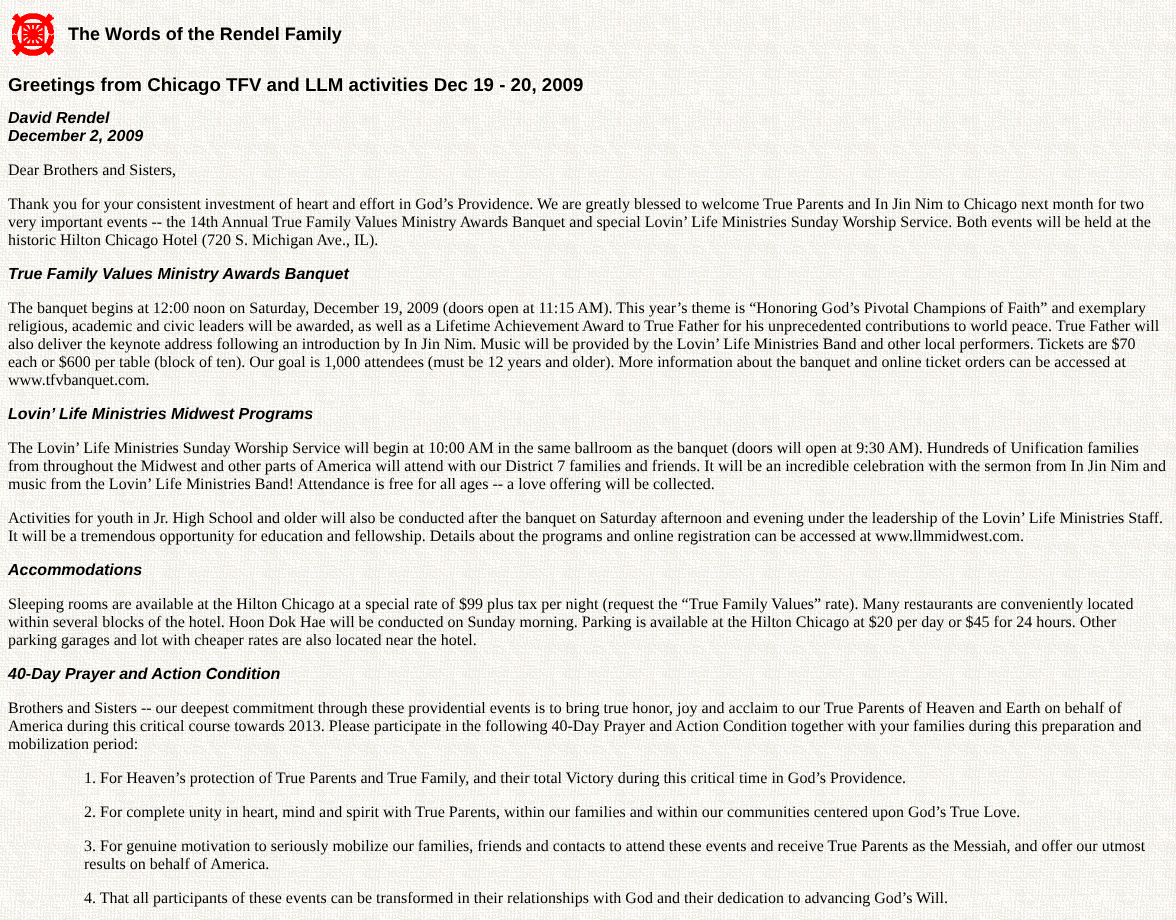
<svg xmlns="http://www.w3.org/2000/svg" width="1176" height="920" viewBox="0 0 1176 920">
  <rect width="100%" height="100%" fill="#ffffff"/>
  <image x="0" y="0" width="1176" height="920" href="img1.png"/>
  <image x="12" y="13" width="42" height="43" href="img2.png"/>
  <text x="68" y="40" font-family="Liberation Sans" font-size="18" font-weight="bold" fill="#000000">The Words of the Rendel Family</text>
  <text x="8" y="91" font-family="Liberation Sans" font-size="18.7" font-weight="bold" fill="#000000">Greetings from Chicago TFV and LLM activities Dec 19 - 20, 2009</text>
  <text x="8" y="123" font-family="Liberation Sans" font-size="16" font-weight="bold" font-style="italic" fill="#000000">David Rendel</text>
  <text x="8" y="141" font-family="Liberation Sans" font-size="16" font-weight="bold" font-style="italic" fill="#000000">December 2, 2009</text>
  <text x="8" y="175" font-family="Liberation Serif" font-size="16" fill="#000000">Dear Brothers and Sisters,</text>
  <text x="8" y="209" font-family="Liberation Serif" font-size="16" fill="#000000">Thank you for your consistent investment of heart and effort in God’s Providence. We are greatly blessed to welcome True Parents and In Jin Nim to Chicago next month for two</text>
  <text x="8" y="227" font-family="Liberation Serif" font-size="16" fill="#000000">very important events -- the 14th Annual True Family Values Ministry Awards Banquet and special Lovin’ Life Ministries Sunday Worship Service. Both events will be held at the</text>
  <text x="8" y="245" font-family="Liberation Serif" font-size="16" fill="#000000">historic Hilton Chicago Hotel (720 S. Michigan Ave., IL).</text>
  <text x="8" y="279" font-family="Liberation Sans" font-size="16" font-weight="bold" font-style="italic" fill="#000000">True Family Values Ministry Awards Banquet</text>
  <text x="8" y="313" font-family="Liberation Serif" font-size="16" fill="#000000">The banquet begins at 12:00 noon on Saturday, December 19, 2009 (doors open at 11:15 AM). This year’s theme is “Honoring God’s Pivotal Champions of Faith” and exemplary</text>
  <text x="8" y="331" font-family="Liberation Serif" font-size="16" fill="#000000">religious, academic and civic leaders will be awarded, as well as a Lifetime Achievement Award to True Father for his unprecedented contributions to world peace. True Father will</text>
  <text x="8" y="349" font-family="Liberation Serif" font-size="16" fill="#000000">also deliver the keynote address following an introduction by In Jin Nim. Music will be provided by the Lovin’ Life Ministries Band and other local performers. Tickets are $70</text>
  <text x="8" y="367" font-family="Liberation Serif" font-size="16" fill="#000000">each or $600 per table (block of ten). Our goal is 1,000 attendees (must be 12 years and older). More information about the banquet and online ticket orders can be accessed at</text>
  <text x="8" y="385" font-family="Liberation Serif" font-size="16" fill="#000000">www.tfvbanquet.com.</text>
  <text x="8" y="419" font-family="Liberation Sans" font-size="16" font-weight="bold" font-style="italic" fill="#000000">Lovin’ Life Ministries Midwest Programs</text>
  <text x="8" y="453" font-family="Liberation Serif" font-size="16" fill="#000000">The Lovin’ Life Ministries Sunday Worship Service will begin at 10:00 AM in the same ballroom as the banquet (doors will open at 9:30 AM). Hundreds of Unification families</text>
  <text x="8" y="471" font-family="Liberation Serif" font-size="16" fill="#000000">from throughout the Midwest and other parts of America will attend with our District 7 families and friends. It will be an incredible celebration with the sermon from In Jin Nim and</text>
  <text x="8" y="489" font-family="Liberation Serif" font-size="16" fill="#000000">music from the Lovin’ Life Ministries Band! Attendance is free for all ages -- a love offering will be collected.</text>
  <text x="8" y="523" font-family="Liberation Serif" font-size="16" fill="#000000">Activities for youth in Jr. High School and older will also be conducted after the banquet on Saturday afternoon and evening under the leadership of the Lovin’ Life Ministries Staff.</text>
  <text x="8" y="541" font-family="Liberation Serif" font-size="16" fill="#000000">It will be a tremendous opportunity for education and fellowship. Details about the programs and online registration can be accessed at www.llmmidwest.com.</text>
  <text x="8" y="575" font-family="Liberation Sans" font-size="16" font-weight="bold" font-style="italic" fill="#000000">Accommodations</text>
  <text x="8" y="609" font-family="Liberation Serif" font-size="16" fill="#000000">Sleeping rooms are available at the Hilton Chicago at a special rate of $99 plus tax per night (request the “True Family Values” rate). Many restaurants are conveniently located</text>
  <text x="8" y="627" font-family="Liberation Serif" font-size="16" fill="#000000">within several blocks of the hotel. Hoon Dok Hae will be conducted on Sunday morning. Parking is available at the Hilton Chicago at $20 per day or $45 for 24 hours. Other</text>
  <text x="8" y="645" font-family="Liberation Serif" font-size="16" fill="#000000">parking garages and lot with cheaper rates are also located near the hotel.</text>
  <text x="8" y="679" font-family="Liberation Sans" font-size="16" font-weight="bold" font-style="italic" fill="#000000">40-Day Prayer and Action Condition</text>
  <text x="8" y="713" font-family="Liberation Serif" font-size="16" fill="#000000">Brothers and Sisters -- our deepest commitment through these providential events is to bring true honor, joy and acclaim to our True Parents of Heaven and Earth on behalf of</text>
  <text x="8" y="731" font-family="Liberation Serif" font-size="16" fill="#000000">America during this critical course towards 2013. Please participate in the following 40-Day Prayer and Action Condition together with your families during this preparation and</text>
  <text x="8" y="749" font-family="Liberation Serif" font-size="16" fill="#000000">mobilization period:</text>
  <text x="84" y="783" font-family="Liberation Serif" font-size="16" fill="#000000">1. For Heaven’s protection of True Parents and True Family, and their total Victory during this critical time in God’s Providence.</text>
  <text x="84" y="817" font-family="Liberation Serif" font-size="16" fill="#000000">2. For complete unity in heart, mind and spirit with True Parents, within our families and within our communities centered upon God’s True Love.</text>
  <text x="84" y="851" font-family="Liberation Serif" font-size="16" fill="#000000">3. For genuine motivation to seriously mobilize our families, friends and contacts to attend these events and receive True Parents as the Messiah, and offer our utmost</text>
  <text x="84" y="869" font-family="Liberation Serif" font-size="16" fill="#000000">results on behalf of America.</text>
  <text x="84" y="903" font-family="Liberation Serif" font-size="16" fill="#000000">4. That all participants of these events can be transformed in their relationships with God and their dedication to advancing God’s Will.</text>
</svg>
